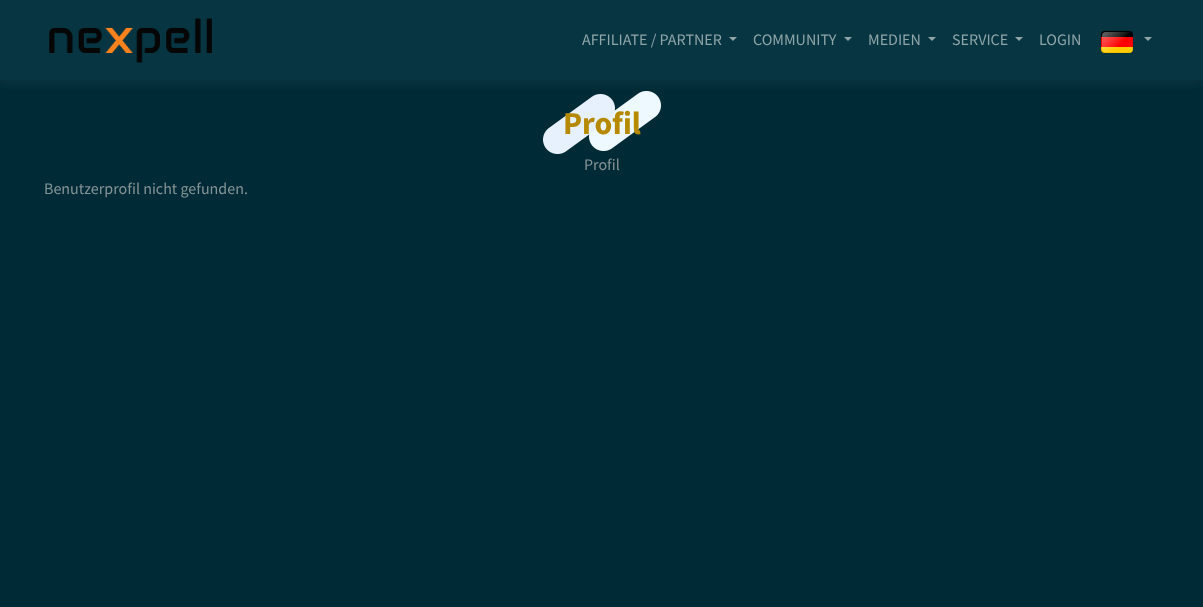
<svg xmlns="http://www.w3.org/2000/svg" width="1203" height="607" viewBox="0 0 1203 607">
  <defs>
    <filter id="blur1" x="-50%" y="-200%" width="200%" height="500%"><feGaussianBlur stdDeviation="4"/></filter>
    <filter id="blur2" x="-50%" y="-200%" width="200%" height="500%"><feGaussianBlur stdDeviation="1.5"/></filter>
    <linearGradient id="g1" gradientUnits="userSpaceOnUse" x1="1105" y1="30" x2="1130" y2="55"><stop offset="0" stop-color="#ffffff" stop-opacity="0.4"/><stop offset="0.4" stop-color="#ffffff" stop-opacity="0.15"/><stop offset="0.6" stop-color="#ffffff" stop-opacity="0"/></linearGradient>
  </defs>
  <rect width="100%" height="100%" fill="#002b36"/>
  <image x="543" y="91" width="118" height="63" href="img3.png"/>
  <rect x="0" y="4" width="1203" height="80" fill="#5a6169" fill-opacity="0.12" filter="url(#blur1)"/>
  <rect x="0" y="0" width="1203" height="80" fill="#073642"/>
  <image x="49" y="18" width="163" height="45" href="img1.png"/>
  <text x="582" y="45" font-family="Source Sans Pro" font-size="16" fill="#8fa5aa">AFFILIATE / PARTNER</text>
  <path d="M729 37H737L733 41Z" fill="#8fa5aa"/>
  <text x="753" y="45" font-family="Source Sans Pro" font-size="16" fill="#8fa5aa">COMMUNITY</text>
  <path d="M844 37H852L848 41Z" fill="#8fa5aa"/>
  <text x="868" y="45" font-family="Source Sans Pro" font-size="16" fill="#8fa5aa">MEDIEN</text>
  <path d="M928 37H936L932 41Z" fill="#8fa5aa"/>
  <text x="952" y="45" font-family="Source Sans Pro" font-size="16" fill="#8fa5aa">SERVICE</text>
  <path d="M1015 37H1023L1019 41Z" fill="#8fa5aa"/>
  <text x="1039" y="45" font-family="Source Sans Pro" font-size="16" fill="#8fa5aa">LOGIN</text>
  <rect x="1101" y="31" width="32" height="22" rx="4" fill="#000000" fill-opacity="0.2" filter="url(#blur2)"/>
  <image x="1101" y="31" width="32" height="22" href="img2.png"/>
  <rect x="1101.5" y="31.5" width="31" height="21" fill="none" stroke="#000000" stroke-opacity="0.05"/>
  <rect x="1102" y="32" width="30" height="20" rx="4" fill="url(#g1)"/>
  <path d="M1144 37H1152L1148 41Z" fill="#8fa5aa"/>
  <text x="563" y="134" font-family="Source Sans Pro" font-size="32" font-weight="bold" fill="#b58900">Profil</text>
  <text x="584" y="170" font-family="Source Sans Pro" font-size="16" fill="#839496">Profil</text>
  <text x="44" y="194" font-family="Source Sans Pro" font-size="16" fill="#839496">Benutzerprofil nicht gefunden.</text>
</svg>
